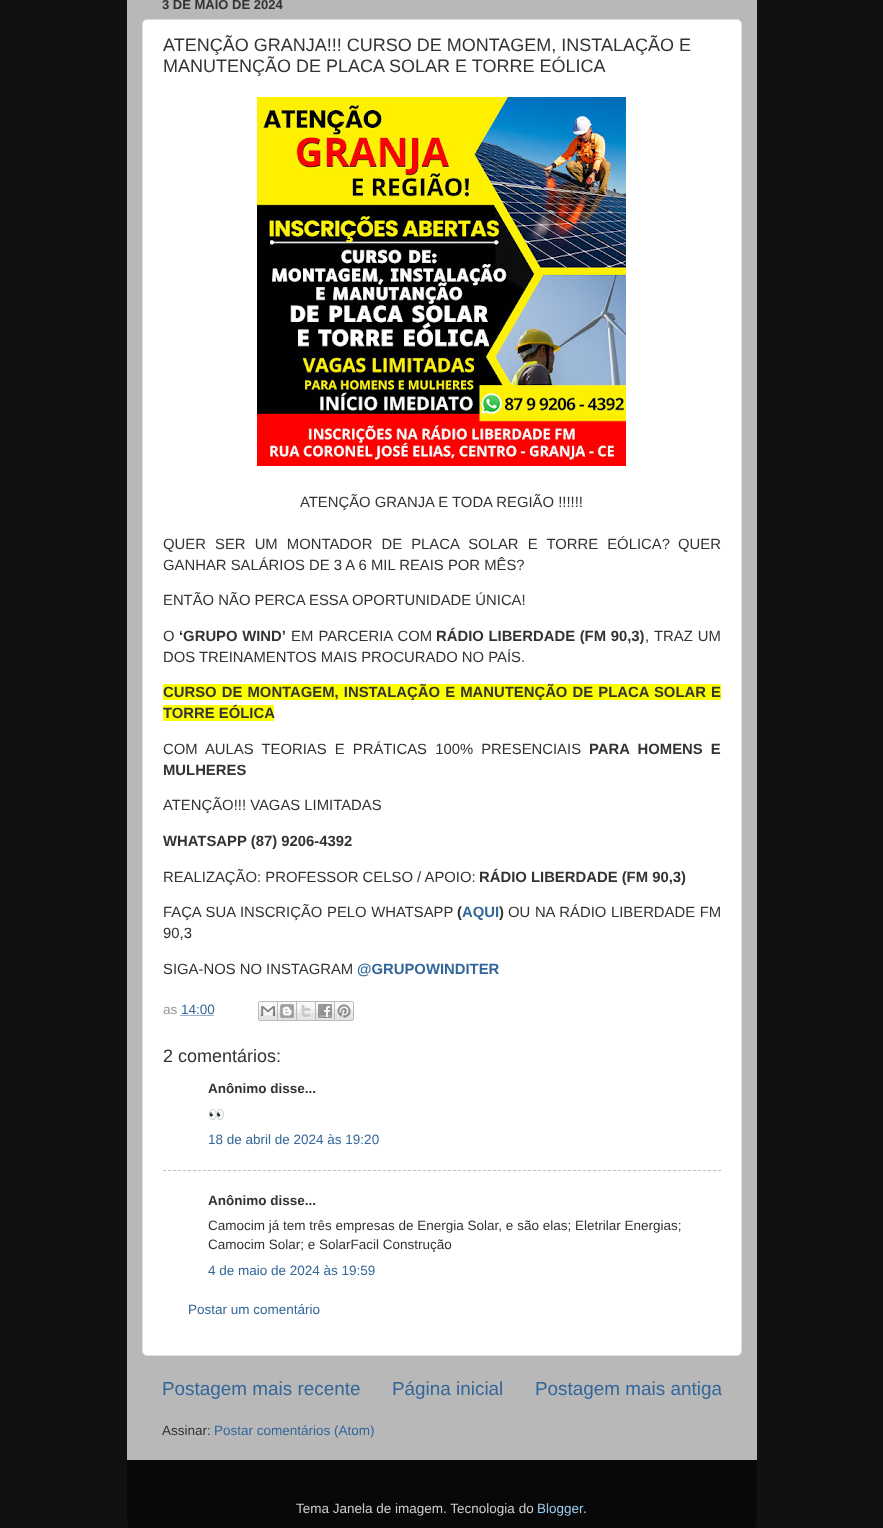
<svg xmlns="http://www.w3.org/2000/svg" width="883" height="1528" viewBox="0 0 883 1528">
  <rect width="100%" height="100%" fill="#111111"/>
  <rect x="127" y="0" width="630" height="1460" fill="#b8b8b8"/>
  <text x="162" y="9" font-family="Liberation Sans" font-size="13" font-weight="bold" fill="#333333">3 DE MAIO DE 2024</text>
  <rect x="142.5" y="19.5" width="599" height="1336" rx="4.5" fill="#ffffff" stroke="#dddddd"/>
  <text x="163" y="51" font-family="Liberation Sans" font-size="18" fill="#333333">ATENÇÃO GRANJA!!! CURSO DE MONTAGEM, INSTALAÇÃO E</text>
  <text x="163" y="72" font-family="Liberation Sans" font-size="18" fill="#333333">MANUTENÇÃO DE PLACA SOLAR E TORRE EÓLICA</text>
  <image x="257" y="97" width="369" height="369" href="img1.png"/>
  <text x="300" y="507" font-family="Liberation Sans" font-size="14.85" fill="#333333">ATENÇÃO GRANJA E TODA REGIÃO !!!!!!</text>
  <text x="163" y="549" word-spacing="5" font-family="Liberation Sans" font-size="14.85" fill="#333333">QUER SER UM MONTADOR DE PLACA SOLAR E TORRE EÓLICA?</text>
  <text x="678" y="549" font-family="Liberation Sans" font-size="14.85" fill="#333333">QUER</text>
  <text x="163" y="570" font-family="Liberation Sans" font-size="14.85" fill="#333333">GANHAR SALÁRIOS DE 3 A 6 MIL REAIS POR MÊS?</text>
  <text x="163" y="605" font-family="Liberation Sans" font-size="14.85" fill="#333333">ENTÃO NÃO PERCA ESSA OPORTUNIDADE ÚNICA!</text>
  <text x="163" y="641" font-family="Liberation Sans" font-size="14.85" fill="#333333">O</text>
  <text x="179" y="641" word-spacing="0.5" font-family="Liberation Sans" font-size="14.85" font-weight="bold" fill="#333333">‘GRUPO WIND’</text>
  <text x="291" y="641" word-spacing="1" font-family="Liberation Sans" font-size="14.85" fill="#333333">EM PARCERIA COM</text>
  <text x="436" y="641" word-spacing="0.5" font-family="Liberation Sans" font-size="14.85" font-weight="bold" fill="#333333">RÁDIO LIBERDADE (FM 90,3)</text>
  <text x="645" y="641" word-spacing="1" font-family="Liberation Sans" font-size="14.85" fill="#333333">, TRAZ UM</text>
  <text x="163" y="662" font-family="Liberation Sans" font-size="14.85" fill="#333333">DOS TREINAMENTOS MAIS PROCURADO NO PAÍS.</text>
  <rect x="163" y="684" width="558" height="16" fill="#fcff01"/>
  <text x="163" y="697" word-spacing="1" font-family="Liberation Sans" font-size="14.85" font-weight="bold" fill="#333333">CURSO DE MONTAGEM, INSTALAÇÃO E MANUTENÇÃO DE PLACA SOLAR E</text>
  <rect x="163" y="705" width="111" height="16" fill="#fcff01"/>
  <text x="163" y="718" font-family="Liberation Sans" font-size="14.85" font-weight="bold" fill="#333333">TORRE EÓLICA</text>
  <text x="163" y="754" word-spacing="4" font-family="Liberation Sans" font-size="14.85" fill="#333333">COM AULAS TEORIAS E PRÁTICAS 100% PRESENCIAIS</text>
  <text x="589" y="754" word-spacing="4" font-family="Liberation Sans" font-size="14.85" font-weight="bold" fill="#333333">PARA HOMENS E</text>
  <text x="163" y="775" font-family="Liberation Sans" font-size="14.85" font-weight="bold" fill="#333333">MULHERES</text>
  <text x="163" y="810" font-family="Liberation Sans" font-size="14.85" fill="#333333">ATENÇÃO!!! VAGAS LIMITADAS</text>
  <text x="163" y="846" font-family="Liberation Sans" font-size="14.85" font-weight="bold" fill="#333333">WHATSAPP (87) 9206-4392</text>
  <text x="163" y="882" font-family="Liberation Sans" font-size="14.85" fill="#333333">REALIZAÇÃO: PROFESSOR CELSO / APOIO:</text>
  <text x="479" y="882" font-family="Liberation Sans" font-size="14.85" font-weight="bold" fill="#333333">RÁDIO LIBERDADE (FM 90,3)</text>
  <text x="163" y="917" word-spacing="0.5" font-family="Liberation Sans" font-size="14.85" fill="#333333">FAÇA SUA INSCRIÇÃO PELO WHATSAPP</text>
  <text x="457" y="917" font-family="Liberation Sans" font-size="14.85" font-weight="bold" fill="#333333">(</text>
  <text x="462" y="917" font-family="Liberation Sans" font-size="14.85" font-weight="bold" fill="#336699">AQUI</text>
  <text x="499" y="917" font-family="Liberation Sans" font-size="14.85" font-weight="bold" fill="#333333">)</text>
  <text x="508" y="917" word-spacing="0.5" font-family="Liberation Sans" font-size="14.85" fill="#333333">OU NA RÁDIO LIBERDADE FM</text>
  <text x="163" y="938" font-family="Liberation Sans" font-size="14.85" fill="#333333">90,3</text>
  <text x="163" y="974" font-family="Liberation Sans" font-size="14.85" fill="#333333">SIGA-NOS NO INSTAGRAM</text>
  <text x="357" y="974" font-family="Liberation Sans" font-size="14.85" font-weight="bold" fill="#336699">@GRUPOWINDITER</text>
  <text x="163" y="1014" font-family="Liberation Sans" font-size="13.5" fill="#999999">as</text>
  <text x="181" y="1014" font-family="Liberation Sans" font-size="13.5" fill="#336699">14:00</text>
  <path d="M180.5 1015.5H214.5" fill="none" stroke="#336699" stroke-dasharray="1 1"/>
  <image x="258" y="1001" width="20" height="20" href="img2.png"/>
  <image x="278" y="1001" width="19" height="20" href="img3.png"/>
  <image x="297" y="1001" width="19" height="20" href="img4.png"/>
  <image x="316" y="1001" width="19" height="20" href="img5.png"/>
  <image x="335" y="1001" width="19" height="20" href="img6.png"/>
  <text x="163" y="1062" font-family="Liberation Sans" font-size="18" fill="#333333">2 comentários:</text>
  <text x="208" y="1093" font-family="Liberation Sans" font-size="13.5" font-weight="bold" fill="#333333">Anônimo disse...</text>
  <text x="208" y="1119" font-family="Noto Color Emoji" font-size="13.5" fill="#333333">👀</text>
  <text x="208" y="1144" font-family="Liberation Sans" font-size="13.5" fill="#336699">18 de abril de 2024 às 19:20</text>
  <path d="M163 1170.5H721" fill="none" stroke="#c0c0c0" stroke-dasharray="3 2"/>
  <text x="208" y="1205" font-family="Liberation Sans" font-size="13.5" font-weight="bold" fill="#333333">Anônimo disse...</text>
  <text x="208" y="1230" font-family="Liberation Sans" font-size="13.5" fill="#333333">Camocim já tem três empresas de Energia Solar, e são elas; Eletrilar Energias;</text>
  <text x="208" y="1249" font-family="Liberation Sans" font-size="13.5" fill="#333333">Camocim Solar; e SolarFacil Construção</text>
  <text x="208" y="1275" font-family="Liberation Sans" font-size="13.5" fill="#336699">4 de maio de 2024 às 19:59</text>
  <text x="188" y="1314" font-family="Liberation Sans" font-size="13.5" fill="#336699">Postar um comentário</text>
  <text x="162" y="1395" font-family="Liberation Sans" font-size="18.9" fill="#336699">Postagem mais recente</text>
  <text x="392" y="1395" font-family="Liberation Sans" font-size="18.9" fill="#336699">Página inicial</text>
  <text x="535" y="1395" font-family="Liberation Sans" font-size="18.9" fill="#336699">Postagem mais antiga</text>
  <text x="162" y="1435" font-family="Liberation Sans" font-size="13.5" fill="#333333">Assinar:</text>
  <text x="214" y="1435" font-family="Liberation Sans" font-size="13.5" fill="#336699">Postar comentários (Atom)</text>
  <image x="127" y="1460" width="630" height="68" href="img7.png"/>
  <text x="296" y="1513" font-family="Liberation Sans" font-size="13.5" fill="#cccccc">Tema Janela de imagem. Tecnologia do</text>
  <text x="537" y="1513" font-family="Liberation Sans" font-size="13.5" fill="#99ccee">Blogger</text>
  <text x="583" y="1513" font-family="Liberation Sans" font-size="13.5" fill="#cccccc">.</text>
</svg>
